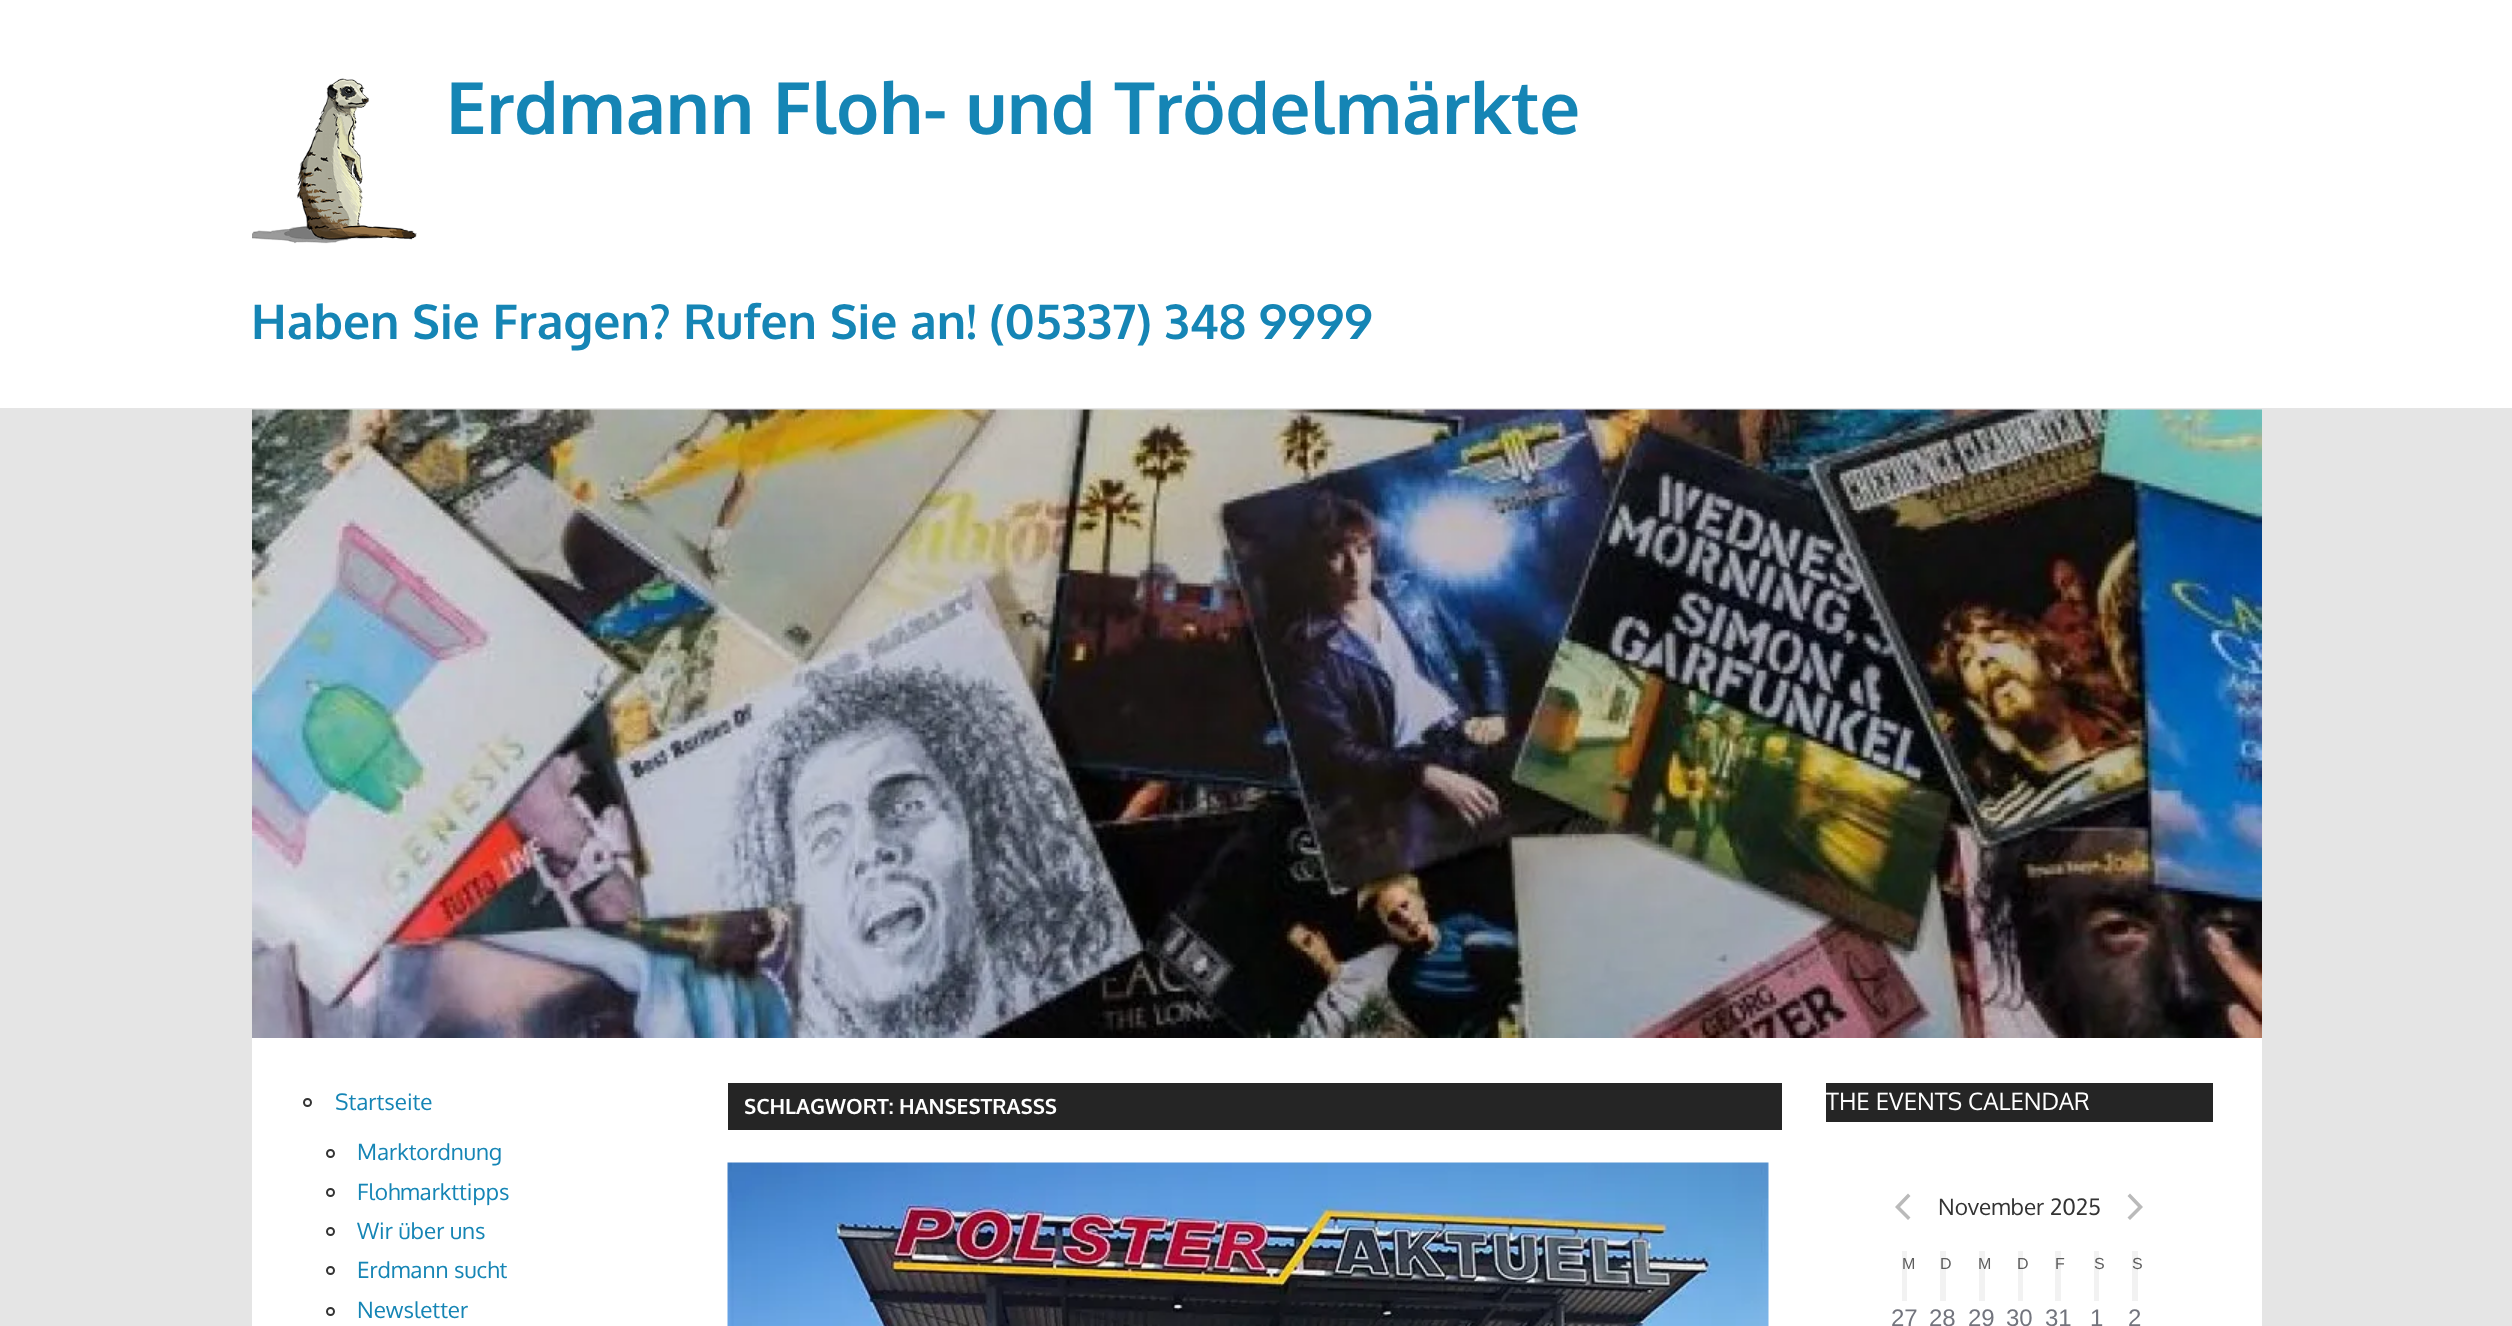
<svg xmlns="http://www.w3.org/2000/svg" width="2512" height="1326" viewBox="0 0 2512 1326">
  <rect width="100%" height="100%" fill="#e5e5e5"/>
  <rect x="0" y="0" width="2512" height="408" fill="#ffffff"/>
  <image x="252" y="78" width="165" height="166" href="img1.png"/>
  <text x="446" y="134" font-family="Oxygen" font-size="72" font-weight="bold" fill="#1585b5">Erdmann Floh- und Trödelmärkte</text>
  <text x="251" y="339" font-family="Oxygen" font-size="48" font-weight="bold" fill="#1585b5">Haben Sie Fragen? Rufen Sie an! (05337) 348 9999</text>
  <image x="252" y="409" width="2010" height="629" href="img2.png"/>
  <rect x="252" y="1038" width="2010" height="288" fill="#ffffff"/>
  <circle cx="307.5" cy="1102.5" r="3.5" fill="none" stroke="#333333" stroke-width="2"/>
  <text x="335" y="1110" font-family="Oxygen" font-size="22.5" fill="#1585b5">Startseite</text>
  <circle cx="330.5" cy="1153.5" r="3.5" fill="none" stroke="#333333" stroke-width="2"/>
  <text x="357" y="1160" font-family="Oxygen" font-size="22.5" fill="#1585b5">Marktordnung</text>
  <circle cx="330.5" cy="1192.5" r="3.5" fill="none" stroke="#333333" stroke-width="2"/>
  <text x="357" y="1200" font-family="Oxygen" font-size="22.5" fill="#1585b5">Flohmarkttipps</text>
  <circle cx="330.5" cy="1231.5" r="3.5" fill="none" stroke="#333333" stroke-width="2"/>
  <text x="357" y="1239" font-family="Oxygen" font-size="22.5" fill="#1585b5">Wir über uns</text>
  <circle cx="330.5" cy="1270.5" r="3.5" fill="none" stroke="#333333" stroke-width="2"/>
  <text x="357" y="1278" font-family="Oxygen" font-size="22.5" fill="#1585b5">Erdmann sucht</text>
  <circle cx="330.5" cy="1311.5" r="3.5" fill="none" stroke="#333333" stroke-width="2"/>
  <text x="357" y="1318" font-family="Oxygen" font-size="22.5" fill="#1585b5">Newsletter</text>
  <rect x="728" y="1083" width="1054" height="47" fill="#252525"/>
  <text x="744" y="1114" font-family="Oxygen" font-size="21" font-weight="bold" fill="#ffffff">SCHLAGWORT: HANSESTRASSS</text>
  <image x="727" y="1162" width="1042" height="164" href="img3.png"/>
  <rect x="1826" y="1083" width="387" height="39" fill="#252525"/>
  <text x="1826" y="1110" font-family="Oxygen" font-size="24" fill="#ffffff">THE EVENTS CALENDAR</text>
  <path d="M1910.5 1217.5L1908 1220L1895 1207L1908 1193.5L1910.5 1196L1900 1207Z" fill="#bababa"/>
  <text x="1938" y="1215" font-family="Oxygen" font-size="22.5" fill="#333333">November 2025</text>
  <path d="M2127.5 1196L2130 1193.5L2143 1207L2130 1220L2127.5 1217.5L2138 1207Z" fill="#bababa"/>
  <rect x="1902" y="1251" width="5" height="50" fill="#f2f2f2"/>
  <text x="1902" y="1269" font-family="Liberation Sans" font-size="16" fill="#5d5d5d">M</text>
  <rect x="1940" y="1251" width="6" height="50" fill="#f2f2f2"/>
  <text x="1940" y="1269" font-family="Liberation Sans" font-size="16" fill="#5d5d5d">D</text>
  <rect x="1979" y="1251" width="6" height="50" fill="#f2f2f2"/>
  <text x="1978" y="1269" font-family="Liberation Sans" font-size="16" fill="#5d5d5d">M</text>
  <rect x="2018" y="1251" width="5" height="50" fill="#f2f2f2"/>
  <text x="2017" y="1269" font-family="Liberation Sans" font-size="16" fill="#5d5d5d">D</text>
  <rect x="2055" y="1251" width="6" height="50" fill="#f2f2f2"/>
  <text x="2055" y="1269" font-family="Liberation Sans" font-size="16" fill="#5d5d5d">F</text>
  <rect x="2094" y="1251" width="5" height="50" fill="#f2f2f2"/>
  <text x="2094" y="1269" font-family="Liberation Sans" font-size="16" fill="#5d5d5d">S</text>
  <rect x="2132" y="1251" width="6" height="50" fill="#f2f2f2"/>
  <text x="2132" y="1269" font-family="Liberation Sans" font-size="16" fill="#5d5d5d">S</text>
  <text x="1891" y="1326" font-family="Liberation Sans" font-size="24" fill="#72747d">27</text>
  <text x="1929" y="1326" font-family="Liberation Sans" font-size="24" fill="#72747d">28</text>
  <text x="1968" y="1326" font-family="Liberation Sans" font-size="24" fill="#72747d">29</text>
  <text x="2006" y="1326" font-family="Liberation Sans" font-size="24" fill="#72747d">30</text>
  <text x="2045" y="1326" font-family="Liberation Sans" font-size="24" fill="#72747d">31</text>
  <text x="2090" y="1326" font-family="Liberation Sans" font-size="24" fill="#72747d">1</text>
  <text x="2128" y="1326" font-family="Liberation Sans" font-size="24" fill="#72747d">2</text>
</svg>
